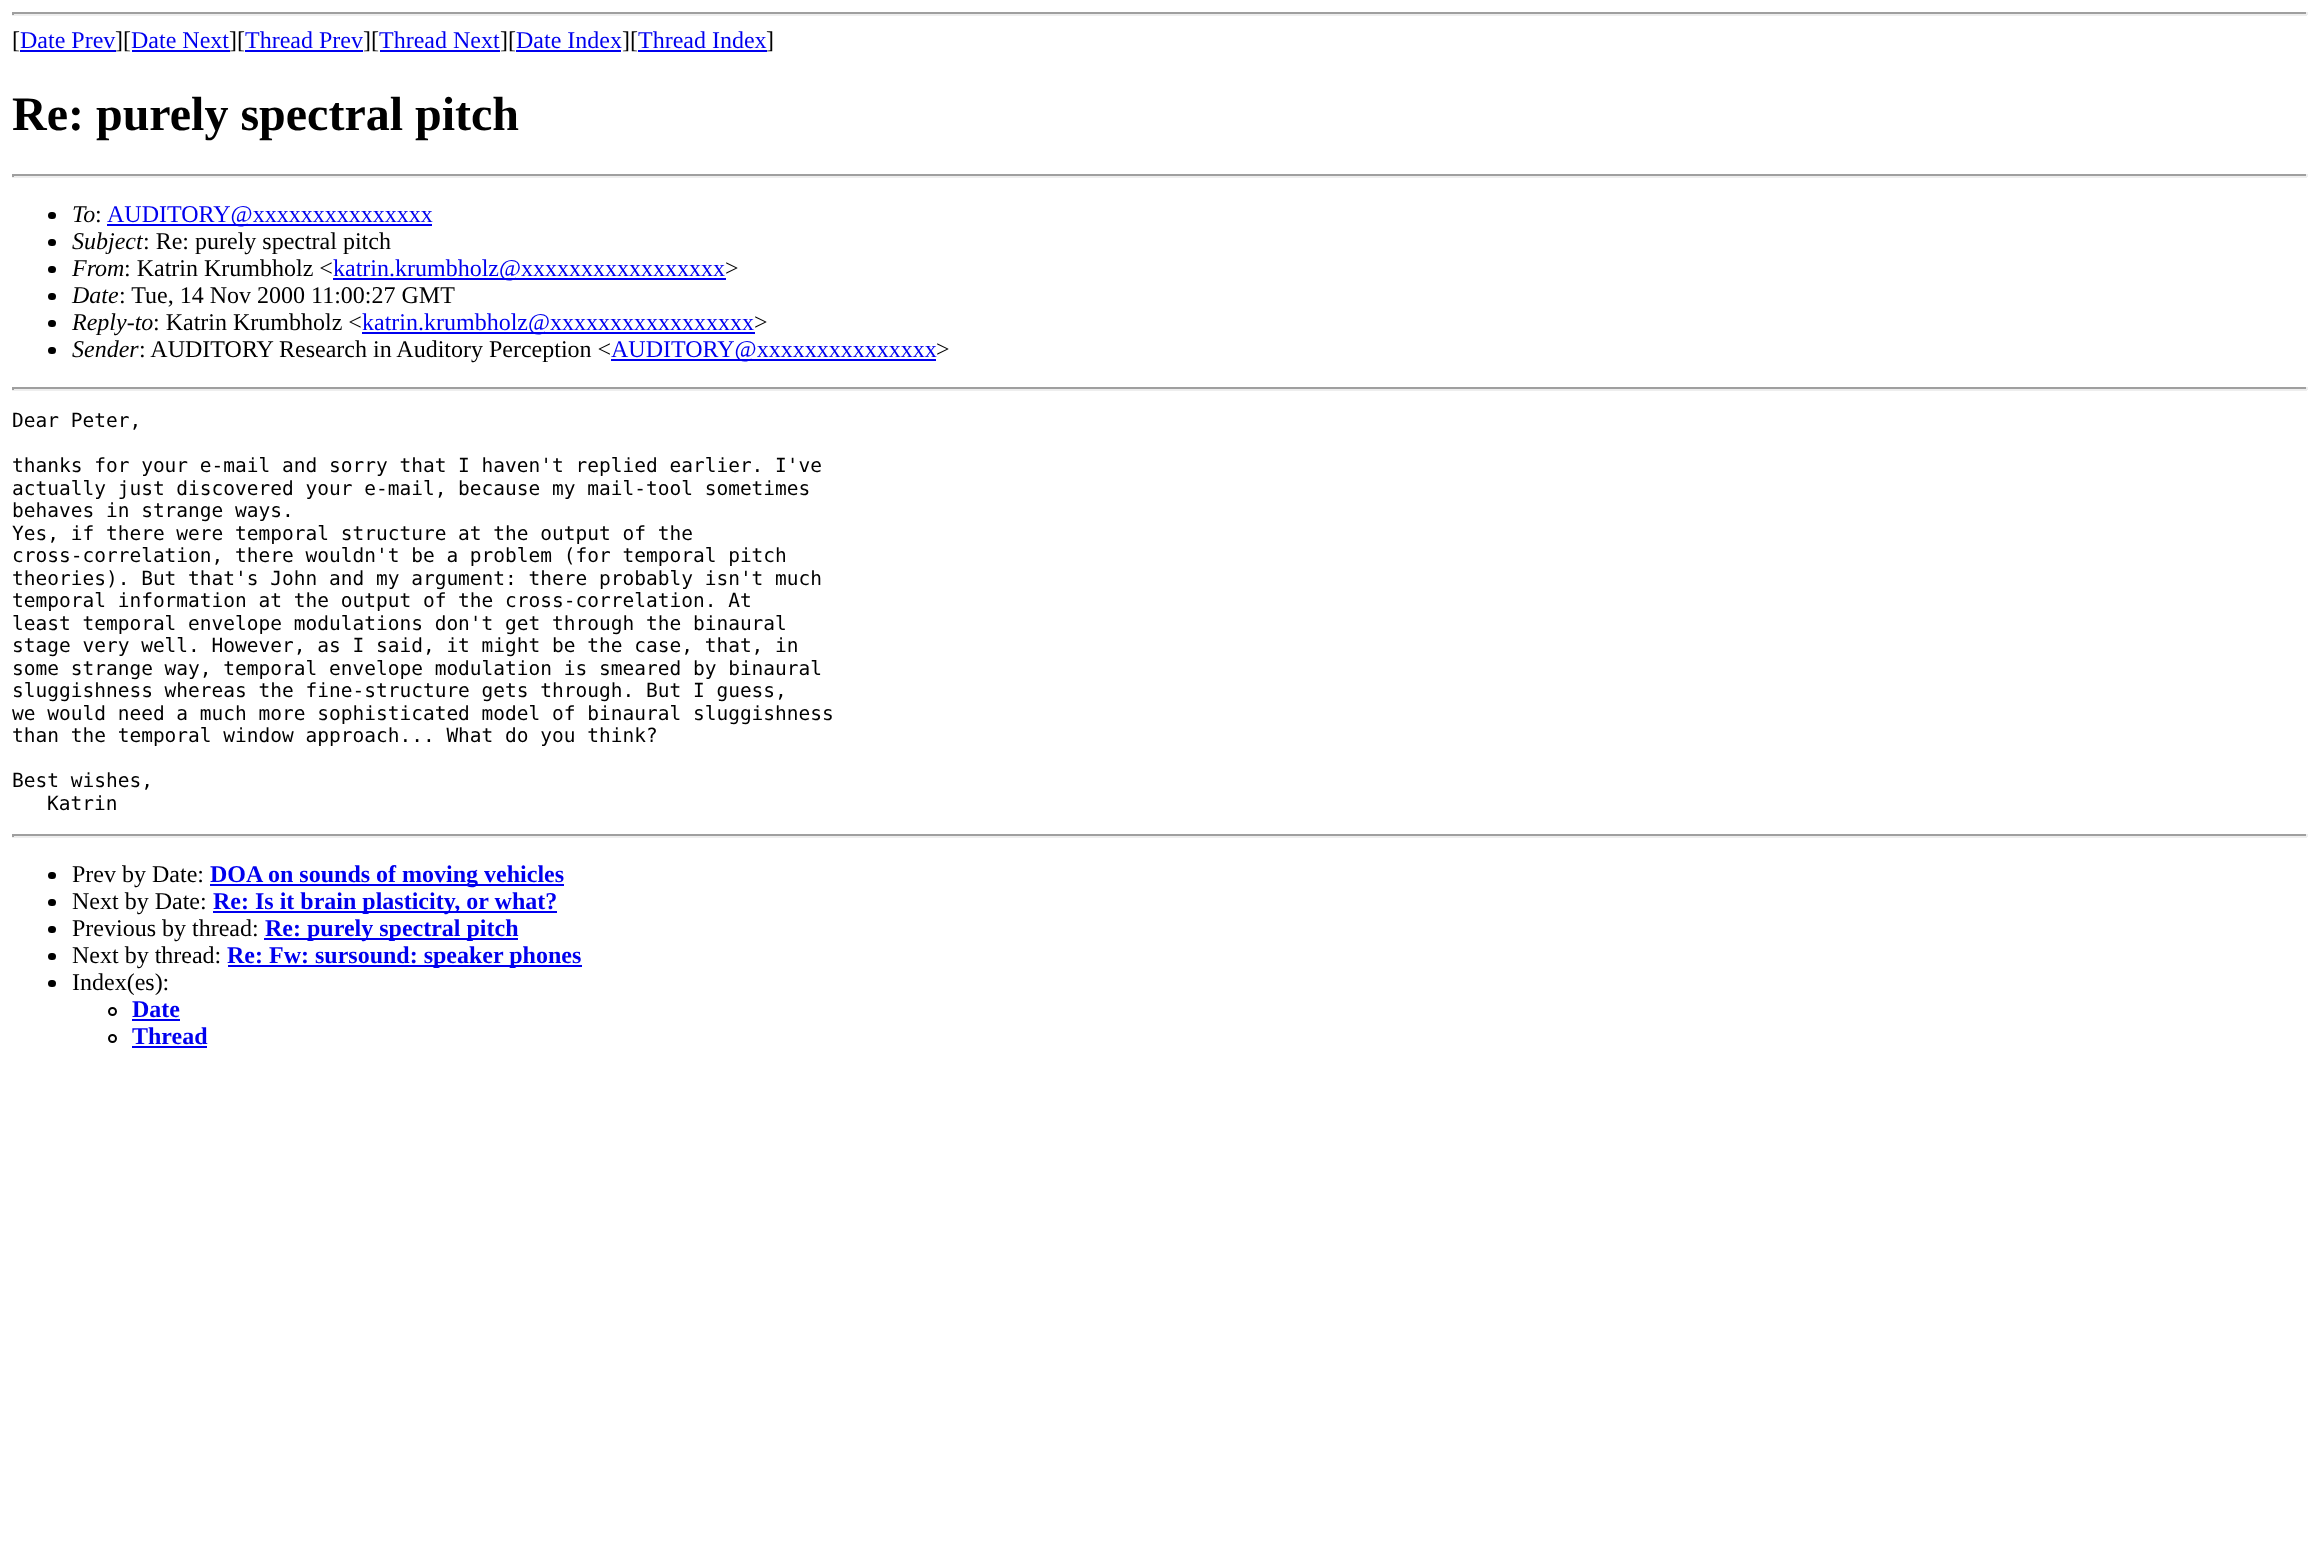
<svg xmlns="http://www.w3.org/2000/svg" width="2319" height="1567" viewBox="0 0 2319 1567">
  <rect width="100%" height="100%" fill="#ffffff"/>
  <rect x="12" y="12" width="2295" height="2" fill="#9f9f9f"/>
  <rect x="2306" y="12" width="2" height="3" fill="#eeeeee"/>
  <rect x="12" y="14" width="2295" height="2" fill="#eeeeee"/>
  <rect x="12" y="12" width="2" height="3" fill="#9f9f9f"/>
  <text x="12" y="48" font-family="Liberation Serif" font-size="24" fill="#000000">[</text>
  <text x="20" y="48" font-family="Liberation Serif" font-size="24" fill="#0000ee">Date Prev</text>
  <rect x="20" y="50" width="96" height="2" fill="#0000ee"/>
  <text x="115" y="48" font-family="Liberation Serif" font-size="24" fill="#000000">][</text>
  <text x="131" y="48" font-family="Liberation Serif" font-size="24" fill="#0000ee">Date Next</text>
  <rect x="132" y="50" width="98" height="2" fill="#0000ee"/>
  <text x="229" y="48" font-family="Liberation Serif" font-size="24" fill="#000000">][</text>
  <text x="245" y="48" font-family="Liberation Serif" font-size="24" fill="#0000ee">Thread Prev</text>
  <rect x="245" y="50" width="118" height="2" fill="#0000ee"/>
  <text x="363" y="48" font-family="Liberation Serif" font-size="24" fill="#000000">][</text>
  <text x="379" y="48" font-family="Liberation Serif" font-size="24" fill="#0000ee">Thread Next</text>
  <rect x="380" y="50" width="120" height="2" fill="#0000ee"/>
  <text x="500" y="48" font-family="Liberation Serif" font-size="24" fill="#000000">][</text>
  <text x="516" y="48" font-family="Liberation Serif" font-size="24" fill="#0000ee">Date Index</text>
  <rect x="516" y="50" width="105" height="2" fill="#0000ee"/>
  <text x="622" y="48" font-family="Liberation Serif" font-size="24" fill="#000000">][</text>
  <text x="638" y="48" font-family="Liberation Serif" font-size="24" fill="#0000ee">Thread Index</text>
  <rect x="638" y="50" width="129" height="2" fill="#0000ee"/>
  <text x="766" y="48" font-family="Liberation Serif" font-size="24" fill="#000000">]</text>
  <text x="12" y="130" font-family="Liberation Serif" font-size="48" font-weight="bold" fill="#000000">Re: purely spectral pitch</text>
  <rect x="12" y="174" width="2295" height="2" fill="#9f9f9f"/>
  <rect x="2306" y="174" width="2" height="3" fill="#eeeeee"/>
  <rect x="12" y="176" width="2295" height="2" fill="#eeeeee"/>
  <rect x="12" y="174" width="2" height="3" fill="#9f9f9f"/>
  <rect x="48" y="212" width="8" height="7" rx="3.5" fill="#000000"/>
  <text x="72" y="222" font-family="Liberation Serif" font-size="24" font-style="italic" fill="#000000">To</text>
  <text x="95" y="222" font-family="Liberation Serif" font-size="24" fill="#000000">:</text>
  <rect x="107" y="224" width="325" height="2" fill="#0000ee"/>
  <text x="107" y="222" font-family="Liberation Serif" font-size="24" fill="#0000ee">AUDITORY@xxxxxxxxxxxxxxx</text>
  <rect x="48" y="239" width="8" height="7" rx="3.5" fill="#000000"/>
  <text x="72" y="249" font-family="Liberation Serif" font-size="24" font-style="italic" fill="#000000">Subject</text>
  <text x="143" y="249" font-family="Liberation Serif" font-size="24" fill="#000000">: Re: purely spectral pitch</text>
  <rect x="48" y="266" width="8" height="7" rx="3.5" fill="#000000"/>
  <text x="72" y="276" font-family="Liberation Serif" font-size="24" font-style="italic" fill="#000000">From</text>
  <text x="124" y="276" font-family="Liberation Serif" font-size="24" fill="#000000">: Katrin Krumbholz &lt;</text>
  <rect x="333" y="278" width="393" height="2" fill="#0000ee"/>
  <text x="333" y="276" font-family="Liberation Serif" font-size="24" fill="#0000ee">katrin.krumbholz@xxxxxxxxxxxxxxxxx</text>
  <text x="725" y="276" font-family="Liberation Serif" font-size="24" fill="#000000">&gt;</text>
  <rect x="48" y="293" width="8" height="7" rx="3.5" fill="#000000"/>
  <text x="72" y="303" font-family="Liberation Serif" font-size="24" font-style="italic" fill="#000000">Date</text>
  <text x="119" y="303" font-family="Liberation Serif" font-size="24" fill="#000000">: Tue, 14 Nov 2000 11:00:27 GMT</text>
  <rect x="48" y="320" width="8" height="7" rx="3.5" fill="#000000"/>
  <text x="72" y="330" font-family="Liberation Serif" font-size="24" font-style="italic" fill="#000000">Reply-to</text>
  <text x="153" y="330" font-family="Liberation Serif" font-size="24" fill="#000000">: Katrin Krumbholz &lt;</text>
  <rect x="362" y="332" width="393" height="2" fill="#0000ee"/>
  <text x="362" y="330" font-family="Liberation Serif" font-size="24" fill="#0000ee">katrin.krumbholz@xxxxxxxxxxxxxxxxx</text>
  <text x="754" y="330" font-family="Liberation Serif" font-size="24" fill="#000000">&gt;</text>
  <rect x="48" y="347" width="8" height="7" rx="3.5" fill="#000000"/>
  <text x="72" y="357" font-family="Liberation Serif" font-size="24" font-style="italic" fill="#000000">Sender</text>
  <text x="139" y="357" font-family="Liberation Serif" font-size="24" fill="#000000">: AUDITORY Research in Auditory Perception &lt;</text>
  <rect x="611" y="359" width="325" height="2" fill="#0000ee"/>
  <text x="611" y="357" font-family="Liberation Serif" font-size="24" fill="#0000ee">AUDITORY@xxxxxxxxxxxxxxx</text>
  <text x="936" y="357" font-family="Liberation Serif" font-size="24" fill="#000000">&gt;</text>
  <rect x="12" y="387" width="2295" height="2" fill="#9f9f9f"/>
  <rect x="2306" y="387" width="2" height="3" fill="#eeeeee"/>
  <rect x="12" y="389" width="2295" height="2" fill="#eeeeee"/>
  <rect x="12" y="387" width="2" height="3" fill="#9f9f9f"/>
  <text x="12" y="427" font-family="DejaVu Sans Mono" font-size="19.5" fill="#000000">Dear Peter,</text>
  <text x="12" y="472" font-family="DejaVu Sans Mono" font-size="19.5" fill="#000000">thanks for your e-mail and sorry that I haven't replied earlier. I've</text>
  <text x="12" y="495" font-family="DejaVu Sans Mono" font-size="19.5" fill="#000000">actually just discovered your e-mail, because my mail-tool sometimes</text>
  <text x="12" y="517" font-family="DejaVu Sans Mono" font-size="19.5" fill="#000000">behaves in strange ways.</text>
  <text x="12" y="540" font-family="DejaVu Sans Mono" font-size="19.5" fill="#000000">Yes, if there were temporal structure at the output of the</text>
  <text x="12" y="562" font-family="DejaVu Sans Mono" font-size="19.5" fill="#000000">cross-correlation, there wouldn't be a problem (for temporal pitch</text>
  <text x="12" y="585" font-family="DejaVu Sans Mono" font-size="19.5" fill="#000000">theories). But that's John and my argument: there probably isn't much</text>
  <text x="12" y="607" font-family="DejaVu Sans Mono" font-size="19.5" fill="#000000">temporal information at the output of the cross-correlation. At</text>
  <text x="12" y="630" font-family="DejaVu Sans Mono" font-size="19.5" fill="#000000">least temporal envelope modulations don't get through the binaural</text>
  <text x="12" y="652" font-family="DejaVu Sans Mono" font-size="19.5" fill="#000000">stage very well. However, as I said, it might be the case, that, in</text>
  <text x="12" y="675" font-family="DejaVu Sans Mono" font-size="19.5" fill="#000000">some strange way, temporal envelope modulation is smeared by binaural</text>
  <text x="12" y="697" font-family="DejaVu Sans Mono" font-size="19.5" fill="#000000">sluggishness whereas the fine-structure gets through. But I guess,</text>
  <text x="12" y="720" font-family="DejaVu Sans Mono" font-size="19.5" fill="#000000">we would need a much more sophisticated model of binaural sluggishness</text>
  <text x="12" y="742" font-family="DejaVu Sans Mono" font-size="19.5" fill="#000000">than the temporal window approach... What do you think?</text>
  <text x="12" y="787" font-family="DejaVu Sans Mono" font-size="19.5" fill="#000000">Best wishes,</text>
  <text x="47" y="810" font-family="DejaVu Sans Mono" font-size="19.5" fill="#000000">Katrin</text>
  <rect x="12" y="834" width="2295" height="2" fill="#9f9f9f"/>
  <rect x="2306" y="834" width="2" height="3" fill="#eeeeee"/>
  <rect x="12" y="836" width="2295" height="2" fill="#eeeeee"/>
  <rect x="12" y="834" width="2" height="3" fill="#9f9f9f"/>
  <rect x="48" y="872" width="8" height="7" rx="3.5" fill="#000000"/>
  <text x="72" y="882" font-family="Liberation Serif" font-size="24" fill="#000000">Prev by Date:</text>
  <rect x="210" y="884" width="354" height="2" fill="#0000ee"/>
  <text x="210" y="882" font-family="Liberation Serif" font-size="24" font-weight="bold" fill="#0000ee">DOA on sounds of moving vehicles</text>
  <rect x="48" y="899" width="8" height="7" rx="3.5" fill="#000000"/>
  <text x="72" y="909" font-family="Liberation Serif" font-size="24" fill="#000000">Next by Date:</text>
  <rect x="213" y="911" width="344" height="2" fill="#0000ee"/>
  <text x="213" y="909" font-family="Liberation Serif" font-size="24" font-weight="bold" fill="#0000ee">Re: Is it brain plasticity, or what?</text>
  <rect x="48" y="926" width="8" height="7" rx="3.5" fill="#000000"/>
  <text x="72" y="936" font-family="Liberation Serif" font-size="24" fill="#000000">Previous by thread:</text>
  <rect x="264" y="938" width="254" height="2" fill="#0000ee"/>
  <text x="265" y="936" font-family="Liberation Serif" font-size="24" font-weight="bold" fill="#0000ee">Re: purely spectral pitch</text>
  <rect x="48" y="953" width="8" height="7" rx="3.5" fill="#000000"/>
  <text x="72" y="963" font-family="Liberation Serif" font-size="24" fill="#000000">Next by thread:</text>
  <rect x="228" y="965" width="354" height="2" fill="#0000ee"/>
  <text x="227" y="963" font-family="Liberation Serif" font-size="24" font-weight="bold" fill="#0000ee">Re: Fw: sursound: speaker phones</text>
  <rect x="48" y="980" width="8" height="7" rx="3.5" fill="#000000"/>
  <text x="72" y="990" font-family="Liberation Serif" font-size="24" fill="#000000">Index(es):</text>
  <circle cx="112.5" cy="1011.5" r="3.5" fill="none" stroke="#000000" stroke-width="2"/>
  <text x="132" y="1017" font-family="Liberation Serif" font-size="24" font-weight="bold" fill="#0000ee">Date</text>
  <rect x="132" y="1019" width="48" height="2" fill="#0000ee"/>
  <circle cx="112.5" cy="1038.5" r="3.5" fill="none" stroke="#000000" stroke-width="2"/>
  <text x="132" y="1044" font-family="Liberation Serif" font-size="24" font-weight="bold" fill="#0000ee">Thread</text>
  <rect x="132" y="1046" width="75" height="2" fill="#0000ee"/>
</svg>
